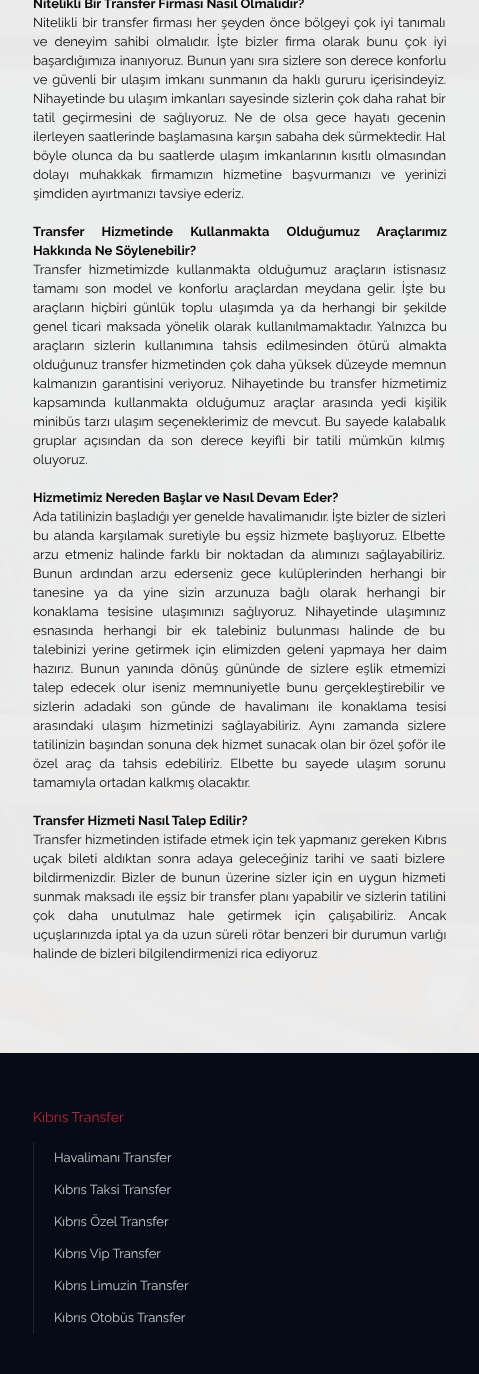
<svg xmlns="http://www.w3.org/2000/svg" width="479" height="1374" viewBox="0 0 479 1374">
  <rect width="100%" height="100%" fill="#ffffff"/>
  <image x="0" y="0" width="479" height="1053" href="img1.png"/>
  <rect x="0" y="0" width="479" height="1053" fill="#ffffff" fill-opacity="0.9"/>
  <text x="33" y="8" font-family="Raleway" font-size="13" font-weight="bold" fill="#0a0a0a">Nitelikli Bir Transfer Firması Nasıl Olmalıdır?</text>
  <text x="33" y="27" word-spacing="1.5" font-family="Raleway" font-size="13" fill="#0a0a0a">Nitelikli bir transfer firması her şeyden önce bölgeyi çok iyi tanımalı</text>
  <text x="33" y="46" word-spacing="3.9" font-family="Raleway" font-size="13" fill="#0a0a0a">ve deneyim sahibi olmalıdır. İşte bizler firma olarak bunu çok iyi</text>
  <text x="33" y="65" word-spacing="0.5" font-family="Raleway" font-size="13" fill="#0a0a0a">başardığımıza inanıyoruz. Bunun yanı sıra sizlere son derece konforlu</text>
  <text x="33" y="84" word-spacing="1.5" font-family="Raleway" font-size="13" fill="#0a0a0a">ve güvenli bir ulaşım imkanı sunmanın da haklı gururu içerisindeyiz.</text>
  <text x="33" y="103" word-spacing="0.25" font-family="Raleway" font-size="13" fill="#0a0a0a">Nihayetinde bu ulaşım imkanları sayesinde sizlerin çok daha rahat bir</text>
  <text x="33" y="122" word-spacing="4.5" font-family="Raleway" font-size="13" fill="#0a0a0a">tatil geçirmesini de sağlıyoruz. Ne de olsa gece hayatı gecenin</text>
  <text x="33" y="141" word-spacing="0.25" font-family="Raleway" font-size="13" fill="#0a0a0a">ilerleyen saatlerinde başlamasına karşın sabaha dek sürmektedir. Hal</text>
  <text x="33" y="160" word-spacing="1.75" font-family="Raleway" font-size="13" fill="#0a0a0a">böyle olunca da bu saatlerde ulaşım imkanlarının kısıtlı olmasından</text>
  <text x="33" y="179" word-spacing="6.75" font-family="Raleway" font-size="13" fill="#0a0a0a">dolayı muhakkak firmamızın hizmetine başvurmanızı ve yerinizi</text>
  <text x="33" y="198" font-family="Raleway" font-size="13" fill="#0a0a0a">şimdiden ayırtmanızı tavsiye ederiz.</text>
  <text x="33" y="236" word-spacing="14" font-family="Raleway" font-size="13" font-weight="bold" fill="#0a0a0a">Transfer Hizmetinde Kullanmakta Olduğumuz Araçlarımız</text>
  <text x="33" y="255" font-family="Raleway" font-size="13" font-weight="bold" fill="#0a0a0a">Hakkında Ne Söylenebilir?</text>
  <text x="33" y="274" word-spacing="4.25" font-family="Raleway" font-size="13" fill="#0a0a0a">Transfer hizmetimizde kullanmakta olduğumuz araçların istisnasız</text>
  <text x="33" y="293" word-spacing="3.25" font-family="Raleway" font-size="13" fill="#0a0a0a">tamamı son model ve konforlu araçlardan meydana gelir. İşte bu</text>
  <text x="33" y="312" word-spacing="3.25" font-family="Raleway" font-size="13" fill="#0a0a0a">araçların hiçbiri günlük toplu ulaşımda ya da herhangi bir şekilde</text>
  <text x="33" y="331" word-spacing="2" font-family="Raleway" font-size="13" fill="#0a0a0a">genel ticari maksada yönelik olarak kullanılmamaktadır. Yalnızca bu</text>
  <text x="33" y="350" word-spacing="6" font-family="Raleway" font-size="13" fill="#0a0a0a">araçların sizlerin kullanımına tahsis edilmesinden ötürü almakta</text>
  <text x="33" y="369" word-spacing="0.75" font-family="Raleway" font-size="13" fill="#0a0a0a">olduğunuz transfer hizmetinden çok daha yüksek düzeyde memnun</text>
  <text x="33" y="388" word-spacing="2.25" font-family="Raleway" font-size="13" fill="#0a0a0a">kalmanızın garantisini veriyoruz. Nihayetinde bu transfer hizmetimiz</text>
  <text x="33" y="407" word-spacing="5" font-family="Raleway" font-size="13" fill="#0a0a0a">kapsamında kullanmakta olduğumuz araçlar arasında yedi kişilik</text>
  <text x="33" y="426" word-spacing="1" font-family="Raleway" font-size="13" fill="#0a0a0a">minibüs tarzı ulaşım seçeneklerimiz de mevcut. Bu sayede kalabalık</text>
  <text x="33" y="445" word-spacing="4.5" font-family="Raleway" font-size="13" fill="#0a0a0a">gruplar açısından da son derece keyifli bir tatili mümkün kılmış</text>
  <text x="33" y="464" font-family="Raleway" font-size="13" fill="#0a0a0a">oluyoruz.</text>
  <text x="33" y="502" font-family="Raleway" font-size="13" font-weight="bold" fill="#0a0a0a">Hizmetimiz Nereden Başlar ve Nasıl Devam Eder?</text>
  <text x="33" y="521" font-family="Raleway" font-size="13" fill="#0a0a0a">Ada tatilinizin başladığı yer genelde havalimanıdır. İşte bizler de sizleri</text>
  <text x="33" y="540" word-spacing="1.75" font-family="Raleway" font-size="13" fill="#0a0a0a">bu alanda karşılamak suretiyle bu eşsiz hizmete başlıyoruz. Elbette</text>
  <text x="33" y="559" word-spacing="3" font-family="Raleway" font-size="13" fill="#0a0a0a">arzu etmeniz halinde farklı bir noktadan da alımınızı sağlayabiliriz.</text>
  <text x="33" y="578" word-spacing="4.5" font-family="Raleway" font-size="13" fill="#0a0a0a">Bunun ardından arzu ederseniz gece kulüplerinden herhangi bir</text>
  <text x="33" y="597" word-spacing="7" font-family="Raleway" font-size="13" fill="#0a0a0a">tanesine ya da yine sizin arzunuza bağlı olarak herhangi bir</text>
  <text x="33" y="616" word-spacing="5.75" font-family="Raleway" font-size="13" fill="#0a0a0a">konaklama tesisine ulaşımınızı sağlıyoruz. Nihayetinde ulaşımınız</text>
  <text x="33" y="635" word-spacing="6.75" font-family="Raleway" font-size="13" fill="#0a0a0a">esnasında herhangi bir ek talebiniz bulunması halinde de bu</text>
  <text x="33" y="654" word-spacing="3" font-family="Raleway" font-size="13" fill="#0a0a0a">talebinizi yerine getirmek için elimizden geleni yapmaya her daim</text>
  <text x="33" y="673" word-spacing="3.9" font-family="Raleway" font-size="13" fill="#0a0a0a">hazırız. Bunun yanında dönüş gününde de sizlere eşlik etmemizi</text>
  <text x="33" y="692" word-spacing="3.5" font-family="Raleway" font-size="13" fill="#0a0a0a">talep edecek olur iseniz memnuniyetle bunu gerçekleştirebilir ve</text>
  <text x="33" y="711" word-spacing="6" font-family="Raleway" font-size="13" fill="#0a0a0a">sizlerin adadaki son günde de havalimanı ile konaklama tesisi</text>
  <text x="33" y="730" word-spacing="5.25" font-family="Raleway" font-size="13" fill="#0a0a0a">arasındaki ulaşım hizmetinizi sağlayabiliriz. Aynı zamanda sizlere</text>
  <text x="33" y="749" word-spacing="0.6" font-family="Raleway" font-size="13" fill="#0a0a0a">tatilinizin başından sonuna dek hizmet sunacak olan bir özel şoför ile</text>
  <text x="33" y="768" word-spacing="4.75" font-family="Raleway" font-size="13" fill="#0a0a0a">özel araç da tahsis edebiliriz. Elbette bu sayede ulaşım sorunu</text>
  <text x="33" y="787" font-family="Raleway" font-size="13" fill="#0a0a0a">tamamıyla ortadan kalkmış olacaktır.</text>
  <text x="33" y="825" font-family="Raleway" font-size="13" font-weight="bold" fill="#0a0a0a">Transfer Hizmeti Nasıl Talep Edilir?</text>
  <text x="33" y="844" word-spacing="0.5" font-family="Raleway" font-size="13" fill="#0a0a0a">Transfer hizmetinden istifade etmek için tek yapmanız gereken Kıbrıs</text>
  <text x="33" y="863" word-spacing="3" font-family="Raleway" font-size="13" fill="#0a0a0a">uçak bileti aldıktan sonra adaya geleceğiniz tarihi ve saati bizlere</text>
  <text x="33" y="882" word-spacing="2.25" font-family="Raleway" font-size="13" fill="#0a0a0a">bildirmenizdir. Bizler de bunun üzerine sizler için en uygun hizmeti</text>
  <text x="33" y="901" word-spacing="0.75" font-family="Raleway" font-size="13" fill="#0a0a0a">sunmak maksadı ile eşsiz bir transfer planı yapabilir ve sizlerin tatilini</text>
  <text x="33" y="920" word-spacing="10" font-family="Raleway" font-size="13" fill="#0a0a0a">çok daha unutulmaz hale getirmek için çalışabiliriz. Ancak</text>
  <text x="33" y="939" word-spacing="0.75" font-family="Raleway" font-size="13" fill="#0a0a0a">uçuşlarınızda iptal ya da uzun süreli rötar benzeri bir durumun varlığı</text>
  <text x="33" y="958" font-family="Raleway" font-size="13" fill="#0a0a0a">halinde de bizleri bilgilendirmenizi rica ediyoruz</text>
  <rect x="0" y="1053" width="479" height="321" fill="#060c17"/>
  <text x="33" y="1122" font-family="Raleway" font-size="14" fill="#bf2331">Kıbrıs Transfer</text>
  <rect x="33" y="1142" width="1" height="192" fill="#1f242e"/>
  <text x="54" y="1162" font-family="Raleway" font-size="13" fill="#c9c9c9">Havalimanı Transfer</text>
  <text x="54" y="1194" font-family="Raleway" font-size="13" fill="#c9c9c9">Kıbrıs Taksi Transfer</text>
  <text x="54" y="1226" font-family="Raleway" font-size="13" fill="#c9c9c9">Kıbrıs Özel Transfer</text>
  <text x="54" y="1258" font-family="Raleway" font-size="13" fill="#c9c9c9">Kıbrıs Vip Transfer</text>
  <text x="54" y="1290" font-family="Raleway" font-size="13" fill="#c9c9c9">Kıbrıs Limuzin Transfer</text>
  <text x="54" y="1322" font-family="Raleway" font-size="13" fill="#c9c9c9">Kıbrıs Otobüs Transfer</text>
</svg>
